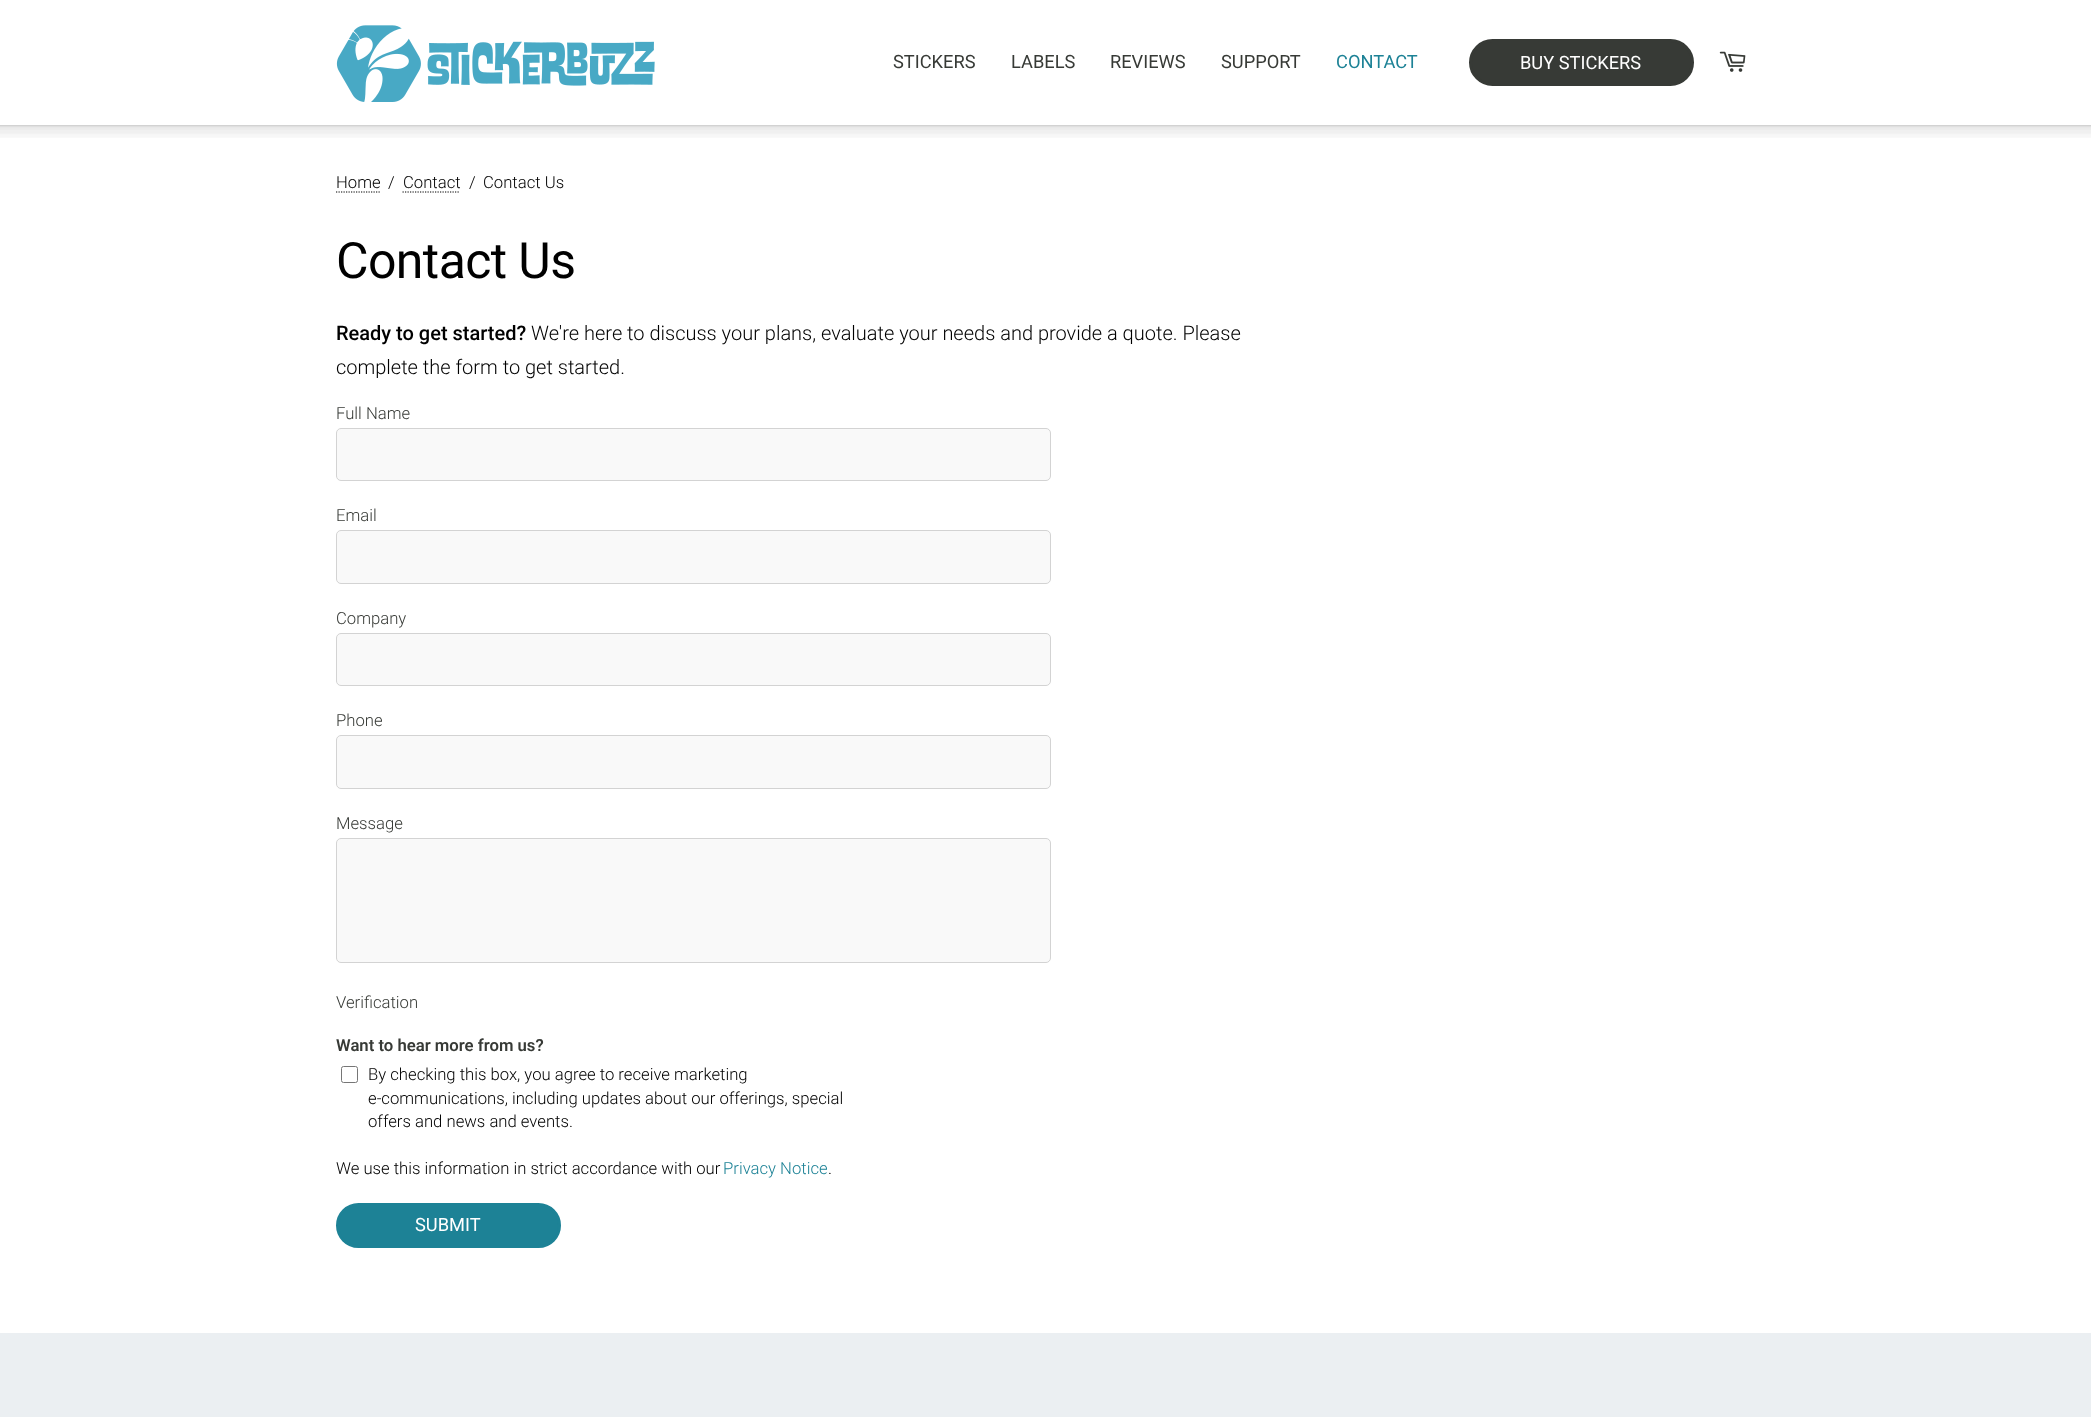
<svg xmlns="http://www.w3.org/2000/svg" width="2091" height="1417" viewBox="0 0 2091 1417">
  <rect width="100%" height="100%" fill="#ffffff"/>
  <image x="336" y="25" width="319" height="77" href="img1.png"/>
  <text x="893" y="68" font-family="Roboto" font-size="18.25" fill="#373a36">STICKERS</text>
  <text x="1011" y="68" font-family="Roboto" font-size="18.25" fill="#373a36">LABELS</text>
  <text x="1110" y="68" font-family="Roboto" font-size="18.25" fill="#373a36">REVIEWS</text>
  <text x="1221" y="68" font-family="Roboto" font-size="18.25" fill="#373a36">SUPPORT</text>
  <text x="1336" y="68" font-family="Roboto" font-size="18.25" fill="#1d8296">CONTACT</text>
  <rect x="1470.5" y="40.5" width="222" height="44" rx="22" fill="#373a36" stroke="#373a36" stroke-width="3"/>
  <text x="1520" y="69" font-family="Roboto" font-size="18.25" fill="#ffffff">BUY STICKERS</text>
  <image x="1719" y="51" width="27" height="21" href="img2.png"/>
  <image x="0" y="125" width="2091" height="13" href="img3.png"/>
  <text x="336" y="188" font-family="Roboto" font-size="16.7" font-weight="300" fill="#000000">Home</text>
  <path d="M336 192H380" fill="none" stroke="#000000" stroke-width="1.2" stroke-dasharray="1.25 1.25"/>
  <text x="388" y="188" font-family="Roboto" font-size="16.7" font-weight="300" fill="#000000">/</text>
  <text x="403" y="188" font-family="Roboto" font-size="16.7" font-weight="300" fill="#000000">Contact</text>
  <path d="M402.5 192H460" fill="none" stroke="#000000" stroke-width="1.2" stroke-dasharray="1.25 1.25"/>
  <text x="469" y="188" font-family="Roboto" font-size="16.7" font-weight="300" fill="#000000">/</text>
  <text x="483" y="188" font-family="Roboto" font-size="16.7" font-weight="300" fill="#000000">Contact Us</text>
  <text x="336" y="278" font-family="Roboto" font-size="50" letter-spacing="-0.6" fill="#000000">Contact Us</text>
  <text x="336" y="340" font-family="Roboto" font-size="20" font-weight="500" fill="#000000">Ready to get started?</text>
  <text x="531" y="340" font-family="Roboto" font-size="20" font-weight="300" fill="#000000">We're here to discuss your plans, evaluate your needs and provide a quote. Please</text>
  <text x="336" y="374" font-family="Roboto" font-size="20" font-weight="300" fill="#000000">complete the form to get started.</text>
  <text x="336" y="419" font-family="Roboto" font-size="16.7" font-weight="300" fill="#373a36">Full Name</text>
  <rect x="336.5" y="428.5" width="714" height="52" rx="4.5" fill="#f9f9f9" stroke="#d3d3d3"/>
  <text x="336" y="521" font-family="Roboto" font-size="16.7" font-weight="300" fill="#373a36">Email</text>
  <rect x="336.5" y="530.5" width="714" height="53" rx="4.5" fill="#f9f9f9" stroke="#d3d3d3"/>
  <text x="336" y="624" font-family="Roboto" font-size="16.7" font-weight="300" fill="#373a36">Company</text>
  <rect x="336.5" y="633.5" width="714" height="52" rx="4.5" fill="#f9f9f9" stroke="#d3d3d3"/>
  <text x="336" y="726" font-family="Roboto" font-size="16.7" font-weight="300" fill="#373a36">Phone</text>
  <rect x="336.5" y="735.5" width="714" height="53" rx="4.5" fill="#f9f9f9" stroke="#d3d3d3"/>
  <text x="336" y="829" font-family="Roboto" font-size="16.7" font-weight="300" fill="#373a36">Message</text>
  <rect x="336.5" y="838.5" width="714" height="124" rx="4.5" fill="#f9f9f9" stroke="#d3d3d3"/>
  <text x="336" y="1008" font-family="Roboto" font-size="16.7" font-weight="300" fill="#373a36">Verification</text>
  <text x="336" y="1051" font-family="Roboto" font-size="16.7" font-weight="600" fill="#373a36">Want to hear more from us?</text>
  <rect x="341.5" y="1066.5" width="16" height="16" rx="2" fill="none" stroke="#767676"/>
  <text x="368" y="1080" font-family="Roboto" font-size="16.7" font-weight="300" fill="#000000">By checking this box, you agree to receive marketing</text>
  <text x="368" y="1104" font-family="Roboto" font-size="16.7" font-weight="300" fill="#000000">e‑communications, including updates about our offerings, special</text>
  <text x="368" y="1127" font-family="Roboto" font-size="16.7" font-weight="300" fill="#000000">offers and news and events.</text>
  <text x="336" y="1174" font-family="Roboto" font-size="16.7" font-weight="300" fill="#000000">We use this information in strict accordance with our</text>
  <text x="723" y="1174" font-family="Roboto" font-size="16.7" font-weight="300" fill="#1d8296">Privacy Notice</text>
  <text x="828" y="1174" font-family="Roboto" font-size="16.7" font-weight="300" fill="#000000">.</text>
  <rect x="337.5" y="1204.5" width="222" height="42" rx="21" fill="#1d8296" stroke="#1d8296" stroke-width="3"/>
  <text x="415" y="1231" font-family="Roboto" font-size="18.25" fill="#ffffff">SUBMIT</text>
  <rect x="0" y="1333" width="2091" height="84" fill="#ebeff2"/>
</svg>
